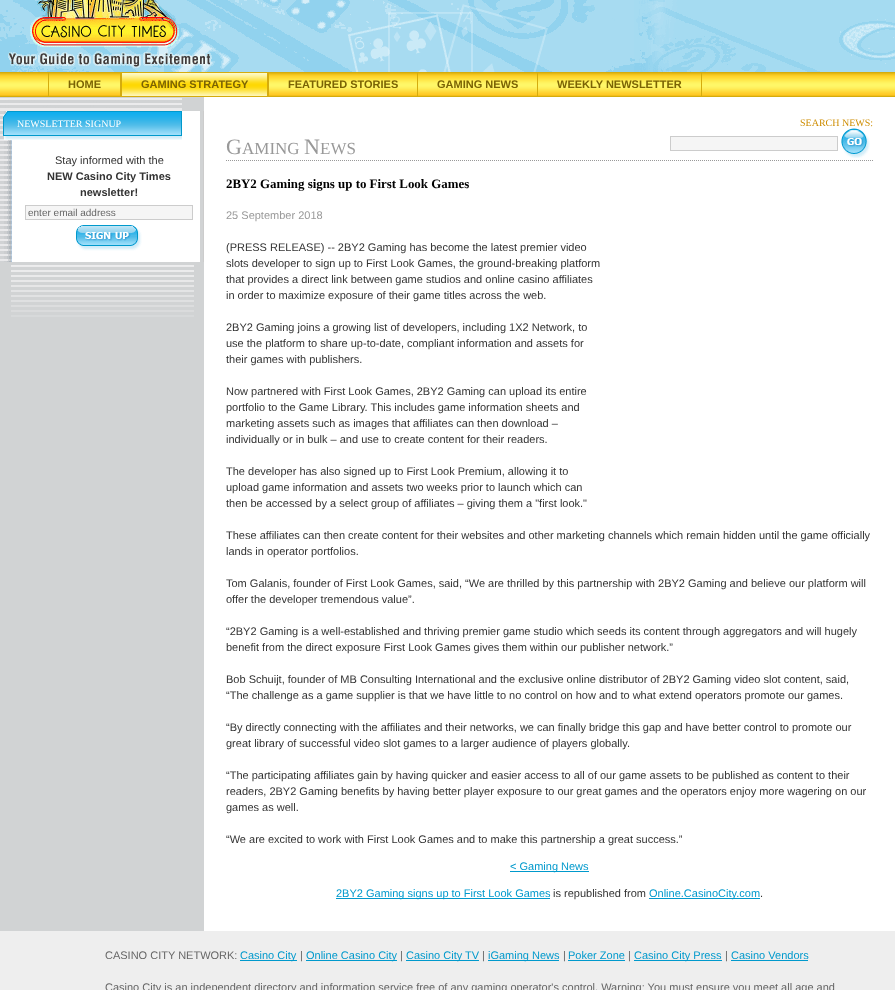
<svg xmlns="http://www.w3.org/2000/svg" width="895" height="990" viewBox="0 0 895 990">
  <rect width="100%" height="100%" fill="#ffffff"/>
  <image x="0" y="0" width="895" height="72" href="img1.png"/>
  <image x="8" y="0" width="204" height="68" href="img2.png"/>
  <rect x="0" y="72" width="895" height="25" fill="#d5ac0d"/>
  <image x="0" y="73" width="895" height="23" href="img3.png"/>
  <rect x="120" y="72" width="2" height="25" fill="#d5ac0d"/>
  <rect x="48" y="72" width="1" height="25" fill="#d5ac0d"/>
  <text x="68" y="88" font-family="Liberation Sans" font-size="11" font-weight="bold" fill="#7b6304">HOME</text>
  <rect x="122" y="73" width="145" height="23" fill="#d5ac0d"/>
  <image x="122" y="73" width="145" height="23" href="img4.png"/>
  <rect x="267" y="72" width="2" height="25" fill="#d5ac0d"/>
  <text x="141" y="88" font-family="Liberation Sans" font-size="11" font-weight="bold" fill="#7b6304">GAMING STRATEGY</text>
  <rect x="417" y="72" width="1" height="25" fill="#d5ac0d"/>
  <text x="288" y="88" font-family="Liberation Sans" font-size="11" font-weight="bold" fill="#7b6304">FEATURED STORIES</text>
  <rect x="537" y="72" width="1" height="25" fill="#d5ac0d"/>
  <text x="437" y="88" font-family="Liberation Sans" font-size="11" font-weight="bold" fill="#7b6304">GAMING NEWS</text>
  <rect x="701" y="72" width="1" height="25" fill="#d5ac0d"/>
  <text x="557" y="88" font-family="Liberation Sans" font-size="11" font-weight="bold" fill="#7b6304">WEEKLY NEWSLETTER</text>
  <rect x="0" y="97" width="204" height="834" fill="#d1d3d4"/>
  <image x="0" y="98" width="182" height="13" href="img5.png"/>
  <image x="11" y="265" width="183" height="52" href="img6.png"/>
  <image x="0" y="111" width="200" height="151" href="img7.png"/>
  <rect x="203" y="111" width="1" height="151" fill="#cccccc"/>
  <image x="3" y="111" width="179" height="29" href="img8.png"/>
  <text x="17" y="127" font-family="Liberation Serif" font-size="10" fill="#ffffff">NEWSLETTER SIGNUP</text>
  <text x="55" y="164" font-family="Liberation Sans" font-size="11" fill="#333333">Stay informed with the</text>
  <text x="47" y="180" font-family="Liberation Sans" font-size="11" font-weight="bold" fill="#333333">NEW Casino City Times</text>
  <text x="80" y="196" font-family="Liberation Sans" font-size="11" font-weight="bold" fill="#333333">newsletter!</text>
  <rect x="25.5" y="205.5" width="167" height="14" fill="#f5f5f5" stroke="#cccccc"/>
  <text x="28" y="216" font-family="Liberation Sans" font-size="10" fill="#666666">enter email address</text>
  <image x="76" y="225" width="66" height="26" href="img9.png"/>
  <text x="800" y="126" font-family="Liberation Serif" font-size="10" fill="#ce8e04">SEARCH NEWS:</text>
  <rect x="670.5" y="136.5" width="167" height="14" fill="#f5f5f5" stroke="#cccccc"/>
  <image x="841" y="128" width="29" height="30" href="img10.png"/>
  <text x="226" y="154" font-family="Liberation Serif" font-size="22" fill="#999999">G</text>
  <text x="242" y="154" font-family="Liberation Serif" font-size="17" fill="#999999">AMING</text>
  <text x="304" y="154" font-family="Liberation Serif" font-size="22" fill="#999999">N</text>
  <text x="320" y="154" font-family="Liberation Serif" font-size="17" fill="#999999">EWS</text>
  <image x="226" y="160" width="647" height="1" href="img11.png"/>
  <text x="226" y="188" font-family="Liberation Serif" font-size="12.9" font-weight="bold" fill="#000000">2BY2 Gaming signs up to First Look Games</text>
  <text x="226" y="219" font-family="Liberation Sans" font-size="11" fill="#999999">25 September 2018</text>
  <text x="226" y="251" font-family="Liberation Sans" font-size="11" fill="#333333">(PRESS RELEASE) -- 2BY2 Gaming has become the latest premier video</text>
  <text x="226" y="267" font-family="Liberation Sans" font-size="11" fill="#333333">slots developer to sign up to First Look Games, the ground-breaking platform</text>
  <text x="226" y="283" font-family="Liberation Sans" font-size="11" fill="#333333">that provides a direct link between game studios and online casino affiliates</text>
  <text x="226" y="299" font-family="Liberation Sans" font-size="11" fill="#333333">in order to maximize exposure of their game titles across the web.</text>
  <text x="226" y="331" font-family="Liberation Sans" font-size="11" fill="#333333">2BY2 Gaming joins a growing list of developers, including 1X2 Network, to</text>
  <text x="226" y="347" font-family="Liberation Sans" font-size="11" fill="#333333">use the platform to share up-to-date, compliant information and assets for</text>
  <text x="226" y="363" font-family="Liberation Sans" font-size="11" fill="#333333">their games with publishers.</text>
  <text x="226" y="395" font-family="Liberation Sans" font-size="11" fill="#333333">Now partnered with First Look Games, 2BY2 Gaming can upload its entire</text>
  <text x="226" y="411" font-family="Liberation Sans" font-size="11" fill="#333333">portfolio to the Game Library. This includes game information sheets and</text>
  <text x="226" y="427" font-family="Liberation Sans" font-size="11" fill="#333333">marketing assets such as images that affiliates can then download –</text>
  <text x="226" y="443" font-family="Liberation Sans" font-size="11" fill="#333333">individually or in bulk – and use to create content for their readers.</text>
  <text x="226" y="475" font-family="Liberation Sans" font-size="11" fill="#333333">The developer has also signed up to First Look Premium, allowing it to</text>
  <text x="226" y="491" font-family="Liberation Sans" font-size="11" fill="#333333">upload game information and assets two weeks prior to launch which can</text>
  <text x="226" y="507" font-family="Liberation Sans" font-size="11" fill="#333333">then be accessed by a select group of affiliates – giving them a "first look."</text>
  <text x="226" y="539" font-family="Liberation Sans" font-size="11" fill="#333333">These affiliates can then create content for their websites and other marketing channels which remain hidden until the game officially</text>
  <text x="226" y="555" font-family="Liberation Sans" font-size="11" fill="#333333">lands in operator portfolios.</text>
  <text x="226" y="587" font-family="Liberation Sans" font-size="11" fill="#333333">Tom Galanis, founder of First Look Games, said, “We are thrilled by this partnership with 2BY2 Gaming and believe our platform will</text>
  <text x="226" y="603" font-family="Liberation Sans" font-size="11" fill="#333333">offer the developer tremendous value”.</text>
  <text x="226" y="635" font-family="Liberation Sans" font-size="11" fill="#333333">“2BY2 Gaming is a well-established and thriving premier game studio which seeds its content through aggregators and will hugely</text>
  <text x="226" y="651" font-family="Liberation Sans" font-size="11" fill="#333333">benefit from the direct exposure First Look Games gives them within our publisher network.”</text>
  <text x="226" y="683" font-family="Liberation Sans" font-size="11" fill="#333333">Bob Schuijt, founder of MB Consulting International and the exclusive online distributor of 2BY2 Gaming video slot content, said,</text>
  <text x="226" y="699" font-family="Liberation Sans" font-size="11" fill="#333333">“The challenge as a game supplier is that we have little to no control on how and to what extend operators promote our games.</text>
  <text x="226" y="731" font-family="Liberation Sans" font-size="11" fill="#333333">“By directly connecting with the affiliates and their networks, we can finally bridge this gap and have better control to promote our</text>
  <text x="226" y="747" font-family="Liberation Sans" font-size="11" fill="#333333">great library of successful video slot games to a larger audience of players globally.</text>
  <text x="226" y="779" font-family="Liberation Sans" font-size="11" fill="#333333">“The participating affiliates gain by having quicker and easier access to all of our game assets to be published as content to their</text>
  <text x="226" y="795" font-family="Liberation Sans" font-size="11" fill="#333333">readers, 2BY2 Gaming benefits by having better player exposure to our great games and the operators enjoy more wagering on our</text>
  <text x="226" y="811" font-family="Liberation Sans" font-size="11" fill="#333333">games as well.</text>
  <text x="226" y="843" font-family="Liberation Sans" font-size="11" fill="#333333">“We are excited to work with First Look Games and to make this partnership a great success.”</text>
  <rect x="510" y="871" width="79" height="1" fill="#0099cc"/>
  <text x="510" y="870" font-family="Liberation Sans" font-size="11" fill="#0099cc">&lt; Gaming News</text>
  <rect x="336" y="898" width="214" height="1" fill="#0099cc"/>
  <text x="336" y="897" font-family="Liberation Sans" font-size="11" fill="#0099cc">2BY2 Gaming signs up to First Look Games</text>
  <text x="553" y="897" font-family="Liberation Sans" font-size="11" fill="#333333">is republished from</text>
  <rect x="649" y="898" width="111" height="1" fill="#0099cc"/>
  <text x="649" y="897" font-family="Liberation Sans" font-size="11" fill="#0099cc">Online.CasinoCity.com</text>
  <text x="760" y="897" font-family="Liberation Sans" font-size="11" fill="#333333">.</text>
  <rect x="0" y="931" width="895" height="59" fill="#eeeeee"/>
  <text x="105" y="959" font-family="Liberation Sans" font-size="11" fill="#666666">CASINO CITY NETWORK:</text>
  <rect x="240" y="960" width="57" height="1" fill="#0099cc"/>
  <text x="240" y="959" font-family="Liberation Sans" font-size="11" fill="#0099cc">Casino City</text>
  <text x="300" y="959" font-family="Liberation Sans" font-size="11" fill="#666666">|</text>
  <rect x="306" y="960" width="91" height="1" fill="#0099cc"/>
  <text x="306" y="959" font-family="Liberation Sans" font-size="11" fill="#0099cc">Online Casino City</text>
  <text x="400" y="959" font-family="Liberation Sans" font-size="11" fill="#666666">|</text>
  <rect x="406" y="960" width="73" height="1" fill="#0099cc"/>
  <text x="406" y="959" font-family="Liberation Sans" font-size="11" fill="#0099cc">Casino City TV</text>
  <text x="482" y="959" font-family="Liberation Sans" font-size="11" fill="#666666">|</text>
  <rect x="488" y="960" width="71" height="1" fill="#0099cc"/>
  <text x="488" y="959" font-family="Liberation Sans" font-size="11" fill="#0099cc">iGaming News</text>
  <text x="563" y="959" font-family="Liberation Sans" font-size="11" fill="#666666">|</text>
  <text x="568" y="959" font-family="Liberation Sans" font-size="11" fill="#0099cc">Poker Zone</text>
  <rect x="568" y="960" width="57" height="1" fill="#0099cc"/>
  <text x="628" y="959" font-family="Liberation Sans" font-size="11" fill="#666666">|</text>
  <rect x="634" y="960" width="88" height="1" fill="#0099cc"/>
  <text x="634" y="959" font-family="Liberation Sans" font-size="11" fill="#0099cc">Casino City Press</text>
  <text x="725" y="959" font-family="Liberation Sans" font-size="11" fill="#666666">|</text>
  <text x="731" y="959" font-family="Liberation Sans" font-size="11" fill="#0099cc">Casino Vendors</text>
  <rect x="731" y="960" width="77" height="1" fill="#0099cc"/>
  <text x="105" y="991" font-family="Liberation Sans" font-size="11" fill="#666666">Casino City is an independent directory and information service free of any gaming operator's control. Warning: You must ensure you meet all age and</text>
</svg>
